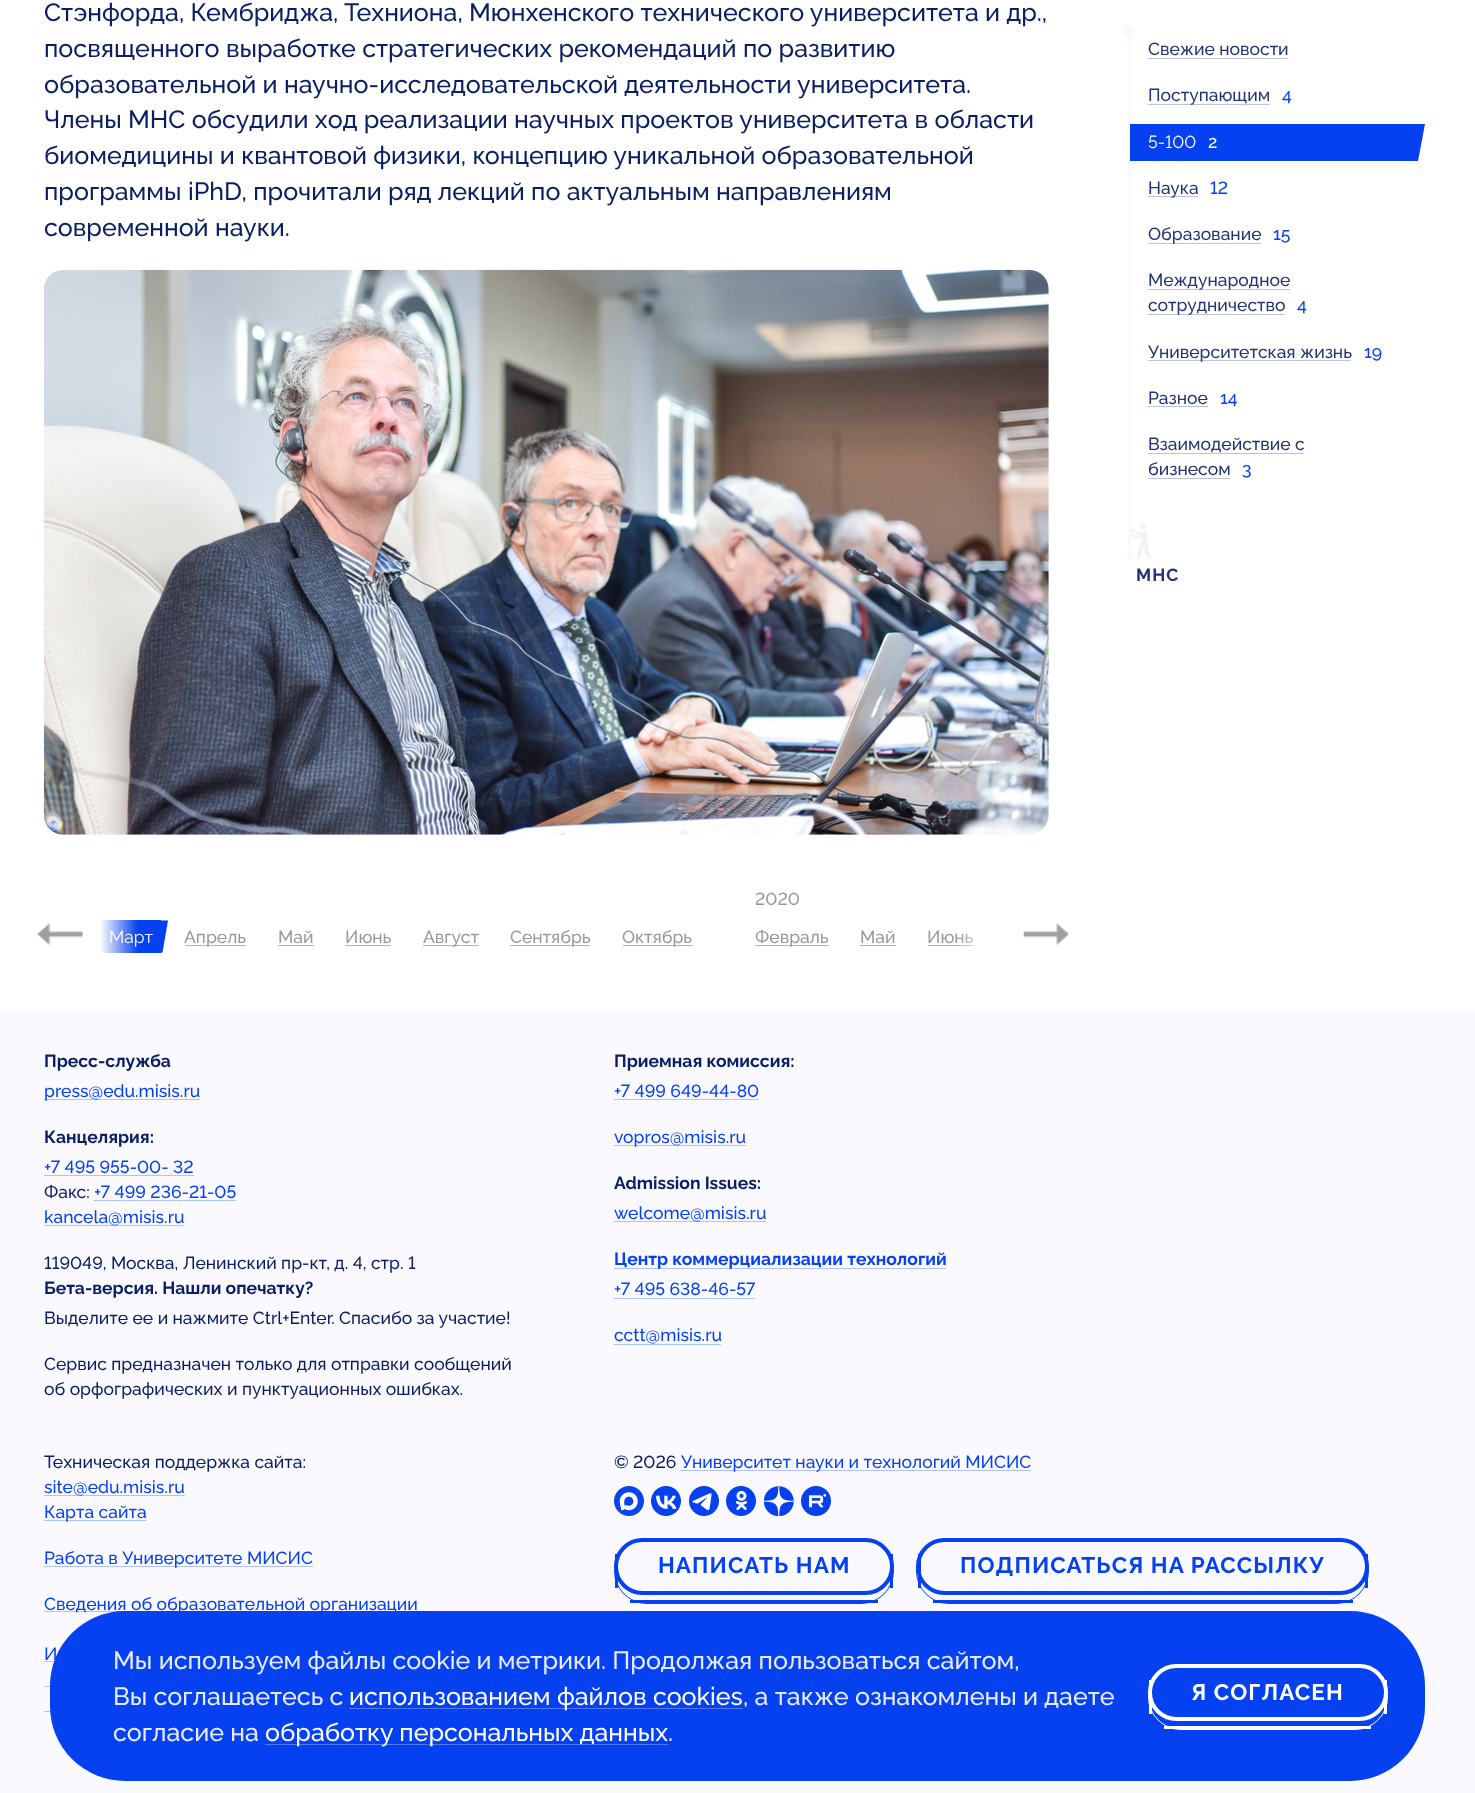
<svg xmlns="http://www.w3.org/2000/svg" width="1475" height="1793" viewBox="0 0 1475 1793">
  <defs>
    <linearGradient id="g1" gradientUnits="userSpaceOnUse" x1="100" y1="924" x2="138" y2="924"><stop offset="0" stop-color="#ffffff"/><stop offset="1" stop-color="#ffffff" stop-opacity="0"/></linearGradient>
    <linearGradient id="g2" gradientUnits="userSpaceOnUse" x1="956" y1="924" x2="994" y2="924"><stop offset="0" stop-color="#ffffff" stop-opacity="0"/><stop offset="1" stop-color="#ffffff"/></linearGradient>
  </defs>
  <rect width="100%" height="100%" fill="#ffffff"/>
  <text x="44" y="21" font-family="Raleway" font-size="25" font-weight="500" fill="#0a1e64">Стэнфорда, Кембриджа, Техниона, Мюнхенского технического университета и др.,</text>
  <text x="44" y="57" font-family="Raleway" font-size="25" font-weight="500" fill="#0a1e64">посвященного выработке стратегических рекомендаций по развитию</text>
  <text x="44" y="93" font-family="Raleway" font-size="25" font-weight="500" fill="#0a1e64">образовательной и научно-исследовательской деятельности университета.</text>
  <text x="44" y="128" font-family="Raleway" font-size="25" font-weight="500" fill="#0a1e64">Члены МНС обсудили ход реализации научных проектов университета в области</text>
  <text x="44" y="164" font-family="Raleway" font-size="25" font-weight="500" fill="#0a1e64">биомедицины и квантовой физики, концепцию уникальной образовательной</text>
  <text x="44" y="200" font-family="Raleway" font-size="25" font-weight="500" fill="#0a1e64">программы iPhD, прочитали ряд лекций по актуальным направлениям</text>
  <text x="44" y="236" font-family="Raleway" font-size="25" font-weight="500" fill="#0a1e64">современной науки.</text>
  <image x="43" y="269" width="1006" height="566" href="img1.png"/>
  <rect x="1128" y="31" width="3" height="528" fill="#f9f9ff"/>
  <rect x="1123" y="25" width="12" height="13" rx="6" fill="#f9f9ff"/>
  <text x="1148" y="55" font-family="Raleway" font-size="17.5" font-weight="500" fill="#223473">Свежие новости</text>
  <rect x="1148" y="58" width="140" height="1" fill="#bdc2d5"/>
  <rect x="1148" y="104" width="122" height="1" fill="#bdc2d5"/>
  <text x="1148" y="101" font-family="Raleway" font-size="17.5" font-weight="500" fill="#223473">Поступающим</text>
  <text x="1282" y="101" font-family="Raleway" font-size="17.5" font-weight="500" fill="#0541f0">4</text>
  <path d="M1381 124H1425L1418 161H1374Z" fill="#0541f0"/>
  <rect x="1130" y="124" width="251" height="37" fill="#0541f0"/>
  <text x="1148" y="148" font-family="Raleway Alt" font-size="17.5" fill="#ffffff">5-100</text>
  <text x="1208" y="148" font-family="Raleway" font-size="17.5" font-weight="500" fill="#ffffff">2</text>
  <rect x="1148" y="196" width="50" height="1" fill="#bdc2d5"/>
  <text x="1148" y="194" font-family="Raleway" font-size="17.5" font-weight="500" fill="#223473">Наука</text>
  <text x="1210" y="194" font-family="Raleway Alt" font-size="17.5" font-weight="500" fill="#0541f0">12</text>
  <rect x="1148" y="243" width="113" height="1" fill="#bdc2d5"/>
  <text x="1148" y="240" font-family="Raleway" font-size="17.5" font-weight="500" fill="#223473">Образование</text>
  <text x="1273" y="240" font-family="Raleway" font-size="17.5" font-weight="500" fill="#0541f0">15</text>
  <rect x="1148" y="289" width="142" height="1" fill="#bdc2d5"/>
  <text x="1148" y="286" font-family="Raleway" font-size="17.5" font-weight="500" fill="#223473">Международное</text>
  <rect x="1148" y="314" width="137" height="1" fill="#bdc2d5"/>
  <text x="1148" y="311" font-family="Raleway" font-size="17.5" font-weight="500" fill="#223473">сотрудничество</text>
  <text x="1297" y="311" font-family="Raleway" font-size="17.5" font-weight="500" fill="#0541f0">4</text>
  <rect x="1148" y="360" width="203" height="1" fill="#bdc2d5"/>
  <text x="1148" y="358" font-family="Raleway" font-size="17.5" font-weight="500" fill="#223473">Университетская жизнь</text>
  <text x="1364" y="358" font-family="Raleway" font-size="17.5" font-weight="500" fill="#0541f0">19</text>
  <text x="1148" y="404" font-family="Raleway" font-size="17.5" font-weight="500" fill="#223473">Разное</text>
  <rect x="1148" y="406" width="60" height="1" fill="#bdc2d5"/>
  <text x="1220" y="404" font-family="Raleway" font-size="17.5" font-weight="500" fill="#0541f0">14</text>
  <text x="1148" y="450" font-family="Raleway" font-size="17.5" font-weight="500" fill="#223473">Взаимодействие с</text>
  <rect x="1148" y="453" width="156" height="1" fill="#bdc2d5"/>
  <text x="1148" y="475" font-family="Raleway" font-size="17.5" font-weight="500" fill="#223473">бизнесом</text>
  <rect x="1148" y="478" width="82" height="1" fill="#bdc2d5"/>
  <text x="1242" y="475" font-family="Raleway" font-size="17.5" font-weight="500" fill="#0541f0">3</text>
  <image x="1130" y="523" width="22" height="36" href="img2.png"/>
  <rect x="1123" y="556" width="12" height="3" fill="#f9f9ff"/>
  <text x="1136" y="581" font-family="Raleway" font-size="17.5" font-weight="bold" letter-spacing="1" fill="#223473">МНС</text>
  <rect x="100" y="920" width="61" height="33" fill="#0541f0"/>
  <text x="109" y="943" font-family="Raleway" font-size="17.5" fill="#ffffff">Март</text>
  <path d="M155.5 920.5H168L162.5 952.5H150Z" fill="#0541f0"/>
  <rect x="185" y="945" width="61" height="1" fill="#b3b3b3"/>
  <text x="184" y="943" font-family="Raleway" font-size="17.5" font-weight="500" fill="#999999">Апрель</text>
  <text x="278" y="943" font-family="Raleway" font-size="17.5" font-weight="500" fill="#999999">Май</text>
  <rect x="278" y="945" width="36" height="1" fill="#b3b3b3"/>
  <text x="345" y="943" font-family="Raleway" font-size="17.5" font-weight="500" fill="#999999">Июнь</text>
  <rect x="345" y="945" width="46" height="1" fill="#b3b3b3"/>
  <rect x="423" y="945" width="56" height="1" fill="#b3b3b3"/>
  <text x="423" y="943" font-family="Raleway" font-size="17.5" font-weight="500" fill="#999999">Август</text>
  <rect x="510" y="945" width="80" height="1" fill="#b3b3b3"/>
  <text x="510" y="943" font-family="Raleway" font-size="17.5" font-weight="500" fill="#999999">Сентябрь</text>
  <rect x="623" y="945" width="70" height="1" fill="#b3b3b3"/>
  <text x="622" y="943" font-family="Raleway" font-size="17.5" font-weight="500" fill="#999999">Октябрь</text>
  <text x="755" y="905" font-family="Raleway Alt" font-size="17.5" font-weight="500" fill="#999999">2020</text>
  <rect x="755" y="945" width="74" height="1" fill="#b3b3b3"/>
  <text x="755" y="943" font-family="Raleway" font-size="17.5" font-weight="500" fill="#999999">Февраль</text>
  <text x="860" y="943" font-family="Raleway" font-size="17.5" font-weight="500" fill="#999999">Май</text>
  <rect x="860" y="945" width="36" height="1" fill="#b3b3b3"/>
  <text x="927" y="943" font-family="Raleway" font-size="17.5" font-weight="500" fill="#999999">Июнь</text>
  <rect x="928" y="945" width="46" height="1" fill="#b3b3b3"/>
  <image x="37" y="923" width="46" height="22" href="img3.png"/>
  <rect x="100" y="920" width="37" height="33" fill="url(#g1)"/>
  <rect x="957" y="933" width="17" height="13" fill="url(#g2)"/>
  <image x="1023" y="923" width="46" height="22" href="img4.png"/>
  <rect x="0" y="1010" width="1475" height="783" fill="#f9f9ff"/>
  <text x="44" y="1067" font-family="Raleway" font-size="17.5" font-weight="bold" fill="#0a1e64">Пресс-служба</text>
  <rect x="44" y="1099" width="156" height="1" fill="#b0c2fb"/>
  <text x="44" y="1097" font-family="Raleway" font-size="17.5" font-weight="500" fill="#0541f0">press@edu.misis.ru</text>
  <text x="44" y="1143" font-family="Raleway" font-size="17.5" font-weight="bold" fill="#0a1e64">Канцелярия:</text>
  <text x="44" y="1173" font-family="Raleway Alt" font-size="17.5" font-weight="500" fill="#0541f0">+7 495 955-00- 32</text>
  <rect x="44" y="1175" width="150" height="1" fill="#b0c2fb"/>
  <text x="44" y="1198" font-family="Raleway" font-size="17.5" font-weight="500" fill="#0a1e64">Факс:</text>
  <text x="94" y="1198" font-family="Raleway Alt" font-size="17.5" font-weight="500" fill="#0541f0">+7 499 236-21-05</text>
  <rect x="94" y="1200" width="142" height="1" fill="#b0c2fb"/>
  <rect x="44" y="1225" width="140" height="1" fill="#b0c2fb"/>
  <text x="44" y="1223" font-family="Raleway" font-size="17.5" font-weight="500" fill="#0541f0">kancela@misis.ru</text>
  <text x="44" y="1269" font-family="Raleway Alt" font-size="17.5" font-weight="500" fill="#0a1e64">119049, Москва, Ленинский пр-кт, д. 4, стр. 1</text>
  <text x="44" y="1294" font-family="Raleway" font-size="17.5" font-weight="bold" fill="#0a1e64">Бета-версия. Нашли опечатку?</text>
  <text x="44" y="1324" font-family="Raleway" font-size="17.5" font-weight="500" fill="#0a1e64">Выделите ее и нажмите Ctrl+Enter. Спасибо за участие!</text>
  <text x="44" y="1370" font-family="Raleway" font-size="17.5" font-weight="500" fill="#0a1e64">Сервис предназначен только для отправки сообщений</text>
  <text x="44" y="1395" font-family="Raleway" font-size="17.5" font-weight="500" fill="#0a1e64">об орфографических и пунктуационных ошибках.</text>
  <text x="614" y="1067" font-family="Raleway" font-size="17.5" font-weight="bold" fill="#0a1e64">Приемная комиссия:</text>
  <text x="614" y="1097" font-family="Raleway Alt" font-size="17.5" font-weight="500" fill="#0541f0">+7 499 649-44-80</text>
  <rect x="614" y="1099" width="145" height="1" fill="#b0c2fb"/>
  <rect x="614" y="1145" width="132" height="1" fill="#b0c2fb"/>
  <text x="614" y="1143" font-family="Raleway" font-size="17.5" font-weight="500" fill="#0541f0">vopros@misis.ru</text>
  <text x="614" y="1189" font-family="Raleway" font-size="17.5" font-weight="bold" fill="#0a1e64">Admission Issues:</text>
  <rect x="614" y="1221" width="152" height="1" fill="#b0c2fb"/>
  <text x="614" y="1219" font-family="Raleway" font-size="17.5" font-weight="500" fill="#0541f0">welcome@misis.ru</text>
  <rect x="614" y="1268" width="332" height="1" fill="#b0c2fb"/>
  <text x="614" y="1265" font-family="Raleway" font-size="17.5" font-weight="bold" fill="#0541f0">Центр коммерциализации технологий</text>
  <text x="614" y="1295" font-family="Raleway Alt" font-size="17.5" font-weight="500" fill="#0541f0">+7 495 638-46-57</text>
  <rect x="614" y="1298" width="141" height="1" fill="#b0c2fb"/>
  <text x="614" y="1341" font-family="Raleway" font-size="17.5" font-weight="500" fill="#0541f0">cctt@misis.ru</text>
  <rect x="614" y="1344" width="107" height="1" fill="#b0c2fb"/>
  <text x="44" y="1468" font-family="Raleway" font-size="17.5" font-weight="500" fill="#0a1e64">Техническая поддержка сайта:</text>
  <rect x="44" y="1495" width="141" height="1" fill="#b0c2fb"/>
  <text x="44" y="1493" font-family="Raleway" font-size="17.5" font-weight="500" fill="#0541f0">site@edu.misis.ru</text>
  <rect x="44" y="1520" width="102" height="1" fill="#b0c2fb"/>
  <text x="44" y="1518" font-family="Raleway" font-size="17.5" font-weight="500" fill="#0541f0">Карта сайта</text>
  <rect x="44" y="1566" width="269" height="1" fill="#b0c2fb"/>
  <text x="44" y="1564" font-family="Raleway" font-size="17.5" font-weight="500" fill="#0541f0">Работа в Университете МИСИС</text>
  <rect x="44" y="1611" width="80" height="1" fill="#b0c2fb"/>
  <text x="44" y="1610" font-family="Raleway" font-size="17.5" font-weight="500" fill="#0541f0">Сведения об образовательной организации</text>
  <text x="44" y="1660" font-family="Raleway" font-size="17.5" font-weight="500" fill="#0541f0">И</text>
  <rect x="44" y="1661" width="11" height="1" fill="#b0c2fb"/>
  <rect x="44" y="1686" width="6" height="1" fill="#b0c2fb"/>
  <rect x="44" y="1711" width="7" height="1" fill="#b0c2fb"/>
  <text x="614" y="1468" font-family="Raleway" font-size="17.5" font-weight="500" fill="#0a1e64">©</text>
  <text x="633" y="1468" font-family="Raleway Alt" font-size="17.5" font-weight="500" fill="#0a1e64">2026</text>
  <rect x="680" y="1470" width="351" height="1" fill="#b0c2fb"/>
  <text x="681" y="1468" font-family="Raleway" font-size="17.5" font-weight="500" fill="#0541f0">Университет науки и технологий МИСИС</text>
  <image x="614" y="1486" width="30" height="30" href="img5.png"/>
  <image x="651" y="1486" width="30" height="30" href="img6.png"/>
  <image x="689" y="1486" width="30" height="30" href="img7.png"/>
  <image x="726" y="1486" width="30" height="30" href="img8.png"/>
  <image x="764" y="1486" width="30" height="30" href="img9.png"/>
  <image x="801" y="1486" width="30" height="30" href="img10.png"/>
  <rect x="616" y="1540" width="276" height="53" rx="26.5" fill="none" stroke="#0541f0" stroke-width="4"/>
  <rect x="614.5" y="1538.5" width="279" height="65" rx="32.5" fill="none" stroke="#0541f0"/>
  <rect x="890" y="1554" width="3" height="34" fill="#0541f0"/>
  <rect x="630" y="1600" width="248" height="3" fill="#0541f0"/>
  <rect x="615" y="1554" width="3" height="34" fill="#0541f0"/>
  <text x="658" y="1573" font-family="Raleway" font-size="22.5" font-weight="bold" letter-spacing="1.1" fill="#0541f0">НАПИСАТЬ НАМ</text>
  <rect x="918" y="1540" width="449" height="53" rx="26.5" fill="none" stroke="#0541f0" stroke-width="4"/>
  <rect x="916.5" y="1538.5" width="452" height="65" rx="32.5" fill="none" stroke="#0541f0"/>
  <rect x="1365" y="1554" width="3" height="34" fill="#0541f0"/>
  <rect x="933" y="1600" width="420" height="3" fill="#0541f0"/>
  <rect x="918" y="1554" width="3" height="34" fill="#0541f0"/>
  <text x="960" y="1573" font-family="Raleway" font-size="22.5" font-weight="bold" letter-spacing="1.1" fill="#0541f0">ПОДПИСАТЬСЯ НА РАССЫЛКУ</text>
  <rect x="50" y="1611" width="1375" height="170" rx="75" fill="#0541f0"/>
  <text x="113" y="1669" font-family="Raleway" font-size="25" font-weight="500" fill="#e6ecfe">Мы используем файлы cookie и метрики. Продолжая пользоваться сайтом,</text>
  <text x="113" y="1705" font-family="Raleway" font-size="25" font-weight="500" fill="#e6ecfe">Вы соглашаетесь с</text>
  <rect x="349" y="1708" width="394" height="1" fill="#507af5"/>
  <text x="349" y="1705" font-family="Raleway" font-size="25" font-weight="500" fill="#ffffff">использованием файлов cookies</text>
  <text x="743" y="1705" font-family="Raleway" font-size="25" font-weight="500" fill="#e6ecfe">, а также ознакомлены и даете</text>
  <text x="113" y="1741" font-family="Raleway" font-size="25" font-weight="500" fill="#e6ecfe">согласие на</text>
  <rect x="265" y="1744" width="403" height="1" fill="#507af5"/>
  <text x="265" y="1741" font-family="Raleway" font-size="25" font-weight="500" fill="#ffffff">обработку персональных данных</text>
  <text x="668" y="1741" font-family="Raleway" font-size="25" font-weight="500" fill="#e6ecfe">.</text>
  <rect x="1150" y="1666" width="236" height="53" rx="26.5" fill="none" stroke="#ffffff" stroke-width="4"/>
  <rect x="1148.5" y="1664.5" width="239" height="65" rx="32.5" fill="none" stroke="#ffffff"/>
  <rect x="1384" y="1680" width="3" height="34" fill="#ffffff"/>
  <rect x="1164" y="1726" width="207" height="3" fill="#ffffff"/>
  <rect x="1149" y="1680" width="3" height="34" fill="#ffffff"/>
  <text x="1191" y="1700" font-family="Raleway" font-size="22.5" font-weight="bold" letter-spacing="1.1" fill="#ffffff">Я СОГЛАСЕН</text>
</svg>
